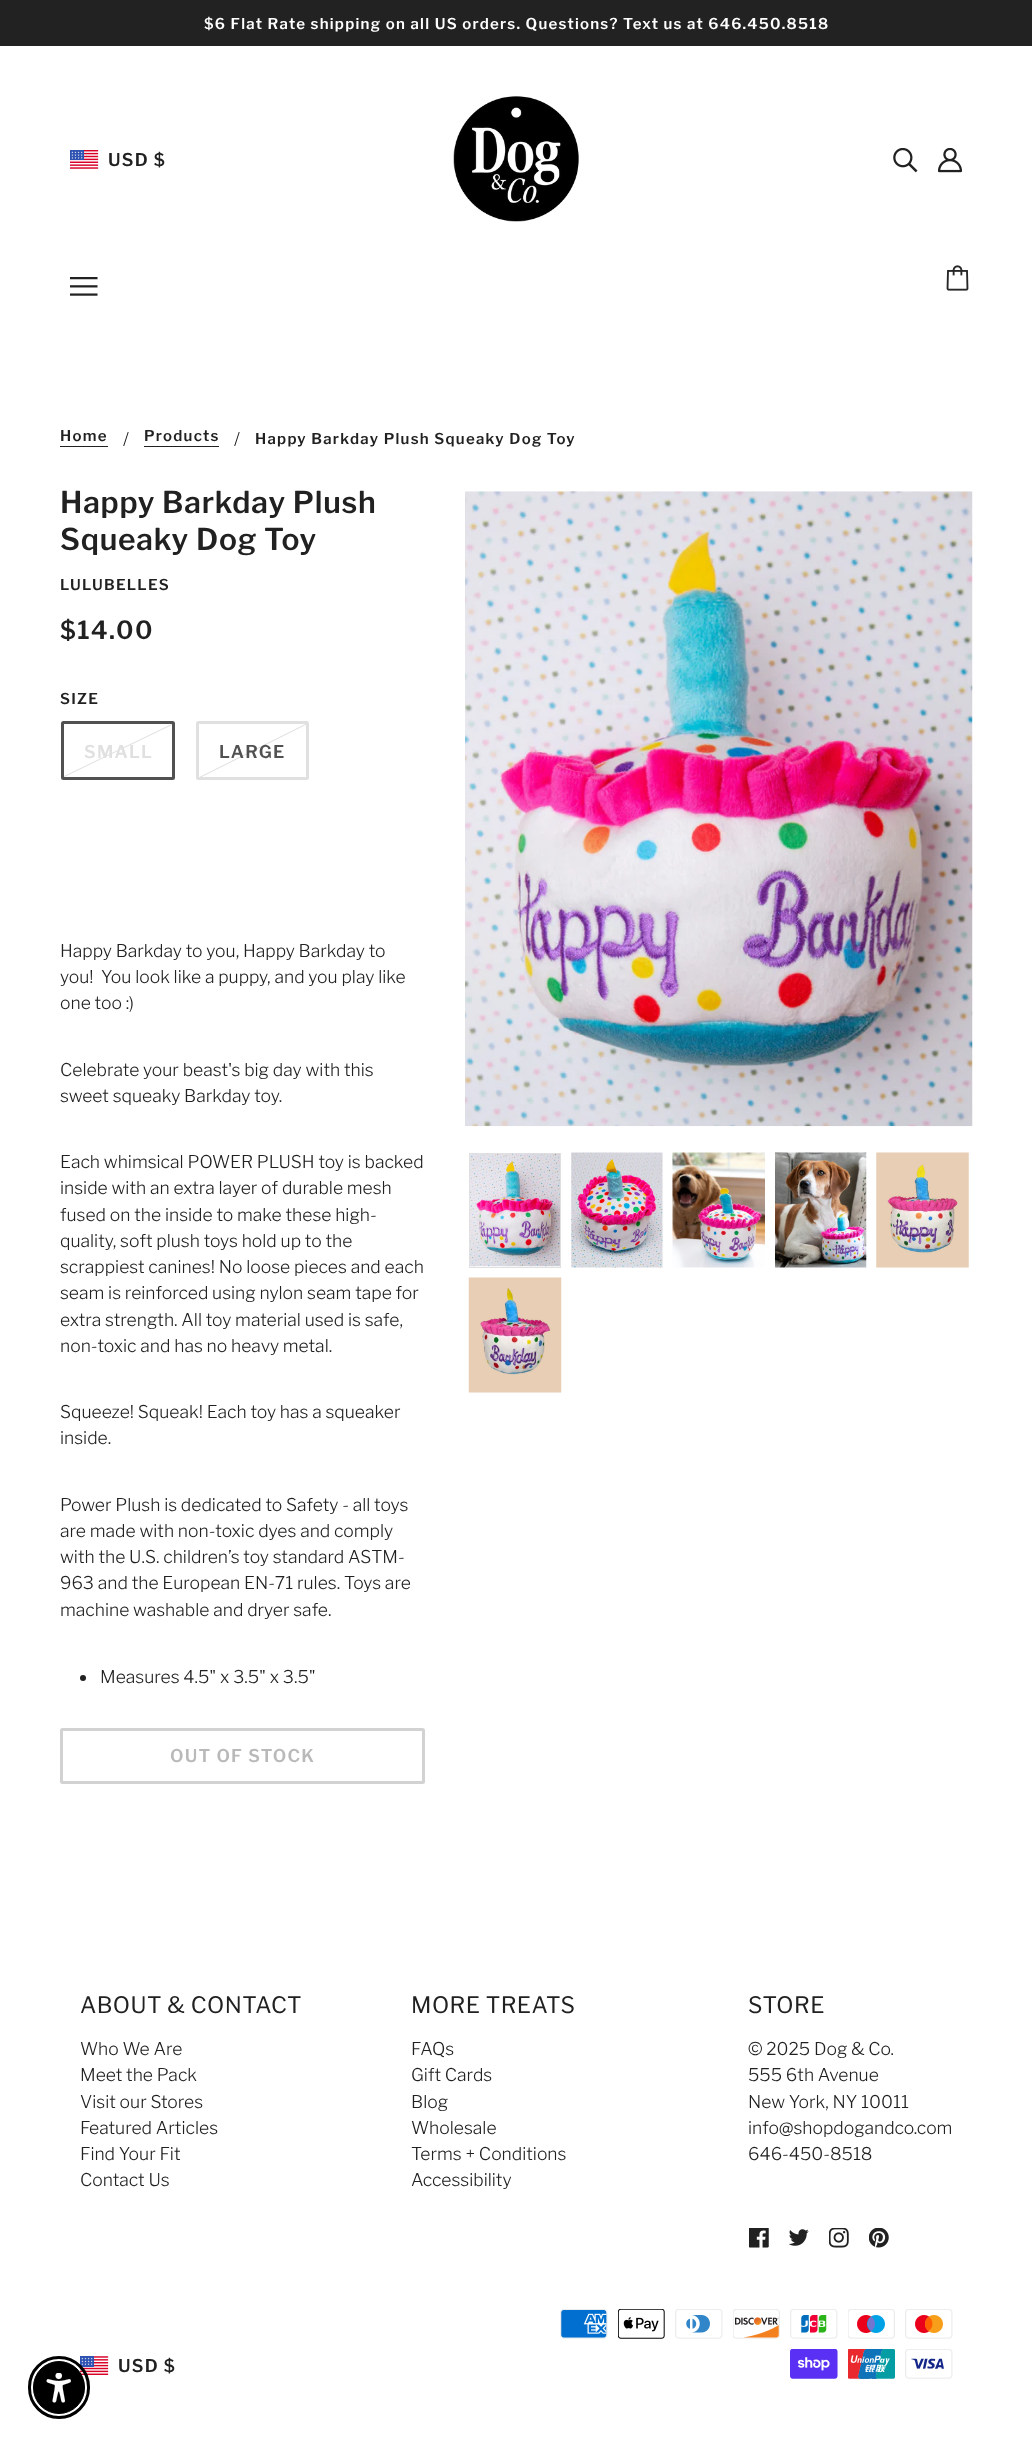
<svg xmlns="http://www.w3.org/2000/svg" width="1032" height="2458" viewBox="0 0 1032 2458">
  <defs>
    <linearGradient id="g1" gradientUnits="userSpaceOnUse" x1="139" y1="794" x2="97" y2="707"><stop offset="0.49" stop-color="#ffffff"/><stop offset="0.5" stop-color="#e0e0e0"/><stop offset="0.51" stop-color="#ffffff"/></linearGradient>
    <linearGradient id="g2" gradientUnits="userSpaceOnUse" x1="274" y1="794" x2="231" y2="708"><stop offset="0.49" stop-color="#ffffff"/><stop offset="0.5" stop-color="#e0e0e0"/><stop offset="0.51" stop-color="#ffffff"/></linearGradient>
  </defs>
  <rect width="100%" height="100%" fill="#ffffff"/>
  <rect x="0" y="0" width="1032" height="46" fill="#222222"/>
  <text x="204" y="29" font-family="Libre Franklin" font-size="15" font-weight="600" letter-spacing="1.25" fill="#ffffff">$6 Flat Rate shipping on all US orders. Questions? Text us at 646.450.8518</text>
  <image x="70" y="150" width="29" height="19" href="img1.png"/>
  <text x="108" y="166" font-family="Libre Franklin" font-size="17.5" font-weight="600" letter-spacing="1.25" fill="#212121">USD $</text>
  <image x="453" y="96" width="126" height="126" href="img2.png"/>
  <image x="893" y="148" width="25" height="25" href="img3.png"/>
  <image x="938" y="148" width="25" height="25" href="img4.png"/>
  <image x="70" y="277" width="28" height="19" href="img5.png"/>
  <image x="946" y="265" width="23" height="26" href="img6.png"/>
  <text x="60" y="441" font-family="Libre Franklin" font-size="15" font-weight="600" letter-spacing="1.25" fill="#212121">Home</text>
  <rect x="60" y="446" width="48" height="1" fill="#212121"/>
  <text x="123" y="445" font-family="Libre Franklin" font-size="17.5" font-weight="300" fill="#212121">/</text>
  <text x="144" y="441" font-family="Libre Franklin" font-size="15" font-weight="600" letter-spacing="1.25" fill="#212121">Products</text>
  <rect x="144" y="446" width="75" height="1" fill="#212121"/>
  <text x="234" y="445" font-family="Libre Franklin" font-size="17.5" font-weight="300" fill="#212121">/</text>
  <text x="255" y="444" font-family="Libre Franklin" font-size="15" font-weight="600" letter-spacing="1.25" fill="#212121">Happy Barkday Plush Squeaky Dog Toy</text>
  <text x="60" y="513" font-family="Libre Franklin" font-size="30" font-weight="600" letter-spacing="0.75" fill="#212121">Happy Barkday Plush</text>
  <text x="60" y="550" font-family="Libre Franklin" font-size="30" font-weight="600" letter-spacing="0.75" fill="#212121">Squeaky Dog Toy</text>
  <text x="60" y="590" font-family="Libre Franklin" font-size="15" font-weight="600" letter-spacing="1.25" fill="#212121">LULUBELLES</text>
  <text x="60" y="639" font-family="Libre Franklin" font-size="25" font-weight="600" letter-spacing="1.25" fill="#212121">$14.00</text>
  <text x="60" y="704" font-family="Libre Franklin" font-size="15" font-weight="600" letter-spacing="1.25" fill="#212121">SIZE</text>
  <rect x="64" y="724" width="108" height="53" fill="url(#g1)"/>
  <rect x="62.5" y="722.5" width="111" height="56" rx="1" fill="none" stroke="#515151" stroke-width="3"/>
  <text x="84" y="758" font-family="Libre Franklin" font-size="17.5" font-weight="600" letter-spacing="1.25" fill="#e0e0e0">SMALL</text>
  <rect x="200" y="724" width="106" height="53" fill="url(#g2)"/>
  <rect x="197.5" y="722.5" width="110" height="56" rx="1" fill="none" stroke="#e0e0e0" stroke-width="3"/>
  <text x="219" y="758" font-family="Libre Franklin" font-size="17.5" font-weight="600" letter-spacing="1.25" fill="#515151">LARGE</text>
  <image x="465" y="491" width="508" height="636" href="img7.png"/>
  <rect x="469.5" y="1153.5" width="91" height="114" fill="none" stroke="#e0e0e0"/>
  <image x="470" y="1153" width="90" height="114" href="img8.png"/>
  <image x="571" y="1152" width="92" height="116" href="img9.png"/>
  <image x="672" y="1152" width="93" height="116" href="img10.png"/>
  <image x="775" y="1152" width="92" height="116" href="img11.png"/>
  <image x="876" y="1152" width="93" height="116" href="img12.png"/>
  <image x="468" y="1277" width="94" height="116" href="img13.png"/>
  <text x="60" y="957" font-family="Libre Franklin" font-size="17.5" font-weight="300" fill="#212121">Happy Barkday to you, Happy Barkday to</text>
  <text x="60" y="983" font-family="Libre Franklin" font-size="17.5" font-weight="300" fill="#212121" xml:space="preserve">you!  You look like a puppy, and you play like</text>
  <text x="60" y="1009" font-family="Libre Franklin" font-size="17.5" font-weight="300" fill="#212121">one too :)</text>
  <text x="60" y="1076" font-family="Libre Franklin" font-size="17.5" font-weight="300" fill="#212121">Celebrate your beast's big day with this</text>
  <text x="60" y="1102" font-family="Libre Franklin" font-size="17.5" font-weight="300" fill="#212121">sweet squeaky Barkday toy.</text>
  <text x="60" y="1168" font-family="Libre Franklin" font-size="17.5" font-weight="300" fill="#212121">Each whimsical POWER PLUSH toy is backed</text>
  <text x="60" y="1194" font-family="Libre Franklin" font-size="17.5" font-weight="300" fill="#212121">inside with an extra layer of durable mesh</text>
  <text x="60" y="1221" font-family="Libre Franklin" font-size="17.5" font-weight="300" fill="#212121">fused on the inside to make these high-</text>
  <text x="60" y="1247" font-family="Libre Franklin" font-size="17.5" font-weight="300" fill="#212121">quality, soft plush toys hold up to the</text>
  <text x="60" y="1273" font-family="Libre Franklin" font-size="17.5" font-weight="300" fill="#212121">scrappiest canines! No loose pieces and each</text>
  <text x="60" y="1299" font-family="Libre Franklin" font-size="17.5" font-weight="300" fill="#212121">seam is reinforced using nylon seam tape for</text>
  <text x="60" y="1326" font-family="Libre Franklin" font-size="17.5" font-weight="300" fill="#212121">extra strength. All toy material used is safe,</text>
  <text x="60" y="1352" font-family="Libre Franklin" font-size="17.5" font-weight="300" fill="#212121">non-toxic and has no heavy metal.</text>
  <text x="60" y="1418" font-family="Libre Franklin" font-size="17.5" font-weight="300" fill="#212121">Squeeze! Squeak! Each toy has a squeaker</text>
  <text x="60" y="1444" font-family="Libre Franklin" font-size="17.5" font-weight="300" fill="#212121">inside.</text>
  <text x="60" y="1511" font-family="Libre Franklin" font-size="17.5" font-weight="300" fill="#212121">Power Plush is dedicated to Safety - all toys</text>
  <text x="60" y="1537" font-family="Libre Franklin" font-size="17.5" font-weight="300" fill="#212121">are made with non-toxic dyes and comply</text>
  <text x="60" y="1563" font-family="Libre Franklin" font-size="17.5" font-weight="300" fill="#212121">with the U.S. children’s toy standard ASTM-</text>
  <text x="60" y="1589" font-family="Libre Franklin" font-size="17.5" font-weight="300" fill="#212121">963 and the European EN-71 rules. Toys are</text>
  <text x="60" y="1616" font-family="Libre Franklin" font-size="17.5" font-weight="300" fill="#212121">machine washable and dryer safe.</text>
  <circle cx="83" cy="1678" r="3" fill="#212121"/>
  <text x="100" y="1683" font-family="Libre Franklin" font-size="17.5" font-weight="300" fill="#212121">Measures 4.5" x 3.5" x 3.5"</text>
  <rect x="61.5" y="1729.5" width="362" height="53" rx="1" fill="none" stroke="#d2d2d2" stroke-width="3"/>
  <text x="170" y="1762" font-family="Libre Franklin" font-size="17.5" font-weight="600" letter-spacing="1.25" fill="#b9b9b9">OUT OF STOCK</text>
  <text x="80" y="2013" font-family="Libre Franklin" font-size="22.5" letter-spacing="0.5" fill="#212121">ABOUT &amp; CONTACT</text>
  <text x="80" y="2055" font-family="Libre Franklin" font-size="17.5" font-weight="300" fill="#212121">Who We Are</text>
  <text x="80" y="2081" font-family="Libre Franklin" font-size="17.5" font-weight="300" fill="#212121">Meet the Pack</text>
  <text x="80" y="2108" font-family="Libre Franklin" font-size="17.5" font-weight="300" fill="#212121">Visit our Stores</text>
  <text x="80" y="2134" font-family="Libre Franklin" font-size="17.5" font-weight="300" fill="#212121">Featured Articles</text>
  <text x="80" y="2160" font-family="Libre Franklin" font-size="17.5" font-weight="300" fill="#212121">Find Your Fit</text>
  <text x="80" y="2186" font-family="Libre Franklin" font-size="17.5" font-weight="300" fill="#212121">Contact Us</text>
  <text x="411" y="2013" font-family="Libre Franklin" font-size="22.5" letter-spacing="0.5" fill="#212121">MORE TREATS</text>
  <text x="411" y="2055" font-family="Libre Franklin" font-size="17.5" font-weight="300" fill="#212121">FAQs</text>
  <text x="411" y="2081" font-family="Libre Franklin" font-size="17.5" font-weight="300" fill="#212121">Gift Cards</text>
  <text x="411" y="2108" font-family="Libre Franklin" font-size="17.5" font-weight="300" fill="#212121">Blog</text>
  <text x="411" y="2134" font-family="Libre Franklin" font-size="17.5" font-weight="300" fill="#212121">Wholesale</text>
  <text x="411" y="2160" font-family="Libre Franklin" font-size="17.5" font-weight="300" fill="#212121">Terms + Conditions</text>
  <text x="411" y="2186" font-family="Libre Franklin" font-size="17.5" font-weight="300" fill="#212121">Accessibility</text>
  <text x="748" y="2013" font-family="Libre Franklin" font-size="22.5" letter-spacing="0.5" fill="#212121">STORE</text>
  <text x="748" y="2055" font-family="Libre Franklin" font-size="17.5" font-weight="300" fill="#212121">© 2025 Dog &amp; Co.</text>
  <text x="748" y="2081" font-family="Libre Franklin" font-size="17.5" font-weight="300" fill="#212121">555 6th Avenue</text>
  <text x="748" y="2108" font-family="Libre Franklin" font-size="17.5" font-weight="300" fill="#212121">New York, NY 10011</text>
  <text x="748" y="2134" font-family="Libre Franklin" font-size="17.5" font-weight="300" fill="#212121">info@shopdogandco.com</text>
  <text x="748" y="2160" font-family="Libre Franklin" font-size="17.5" font-weight="300" fill="#212121">646-450-8518</text>
  <image x="749" y="2228" width="20" height="20" href="img14.png"/>
  <image x="789" y="2229" width="20" height="17" href="img15.png"/>
  <image x="829" y="2228" width="20" height="20" href="img16.png"/>
  <image x="869" y="2228" width="20" height="20" href="img17.png"/>
  <image x="80" y="2356" width="29" height="19" href="img18.png"/>
  <text x="118" y="2372" font-family="Libre Franklin" font-size="17.5" font-weight="600" letter-spacing="1.25" fill="#212121">USD $</text>
  <image x="560" y="2309" width="48" height="30" href="img19.png"/>
  <image x="618" y="2309" width="47" height="30" href="img20.png"/>
  <image x="675" y="2309" width="48" height="30" href="img21.png"/>
  <image x="733" y="2309" width="47" height="30" href="img22.png"/>
  <image x="790" y="2309" width="48" height="30" href="img23.png"/>
  <image x="848" y="2309" width="47" height="30" href="img24.png"/>
  <image x="905" y="2309" width="48" height="30" href="img25.png"/>
  <image x="790" y="2349" width="48" height="30" href="img26.png"/>
  <image x="848" y="2349" width="47" height="30" href="img27.png"/>
  <image x="905" y="2349" width="48" height="30" href="img28.png"/>
  <rect x="29.5" y="2357.5" width="59" height="60" rx="29.5" fill="none" stroke="#000000" stroke-width="3"/>
  <rect x="33.5" y="2361.5" width="51" height="52" rx="25.5" fill="#000000" stroke="#000000"/>
  <image x="46" y="2373" width="25" height="30" href="img29.png"/>
</svg>
